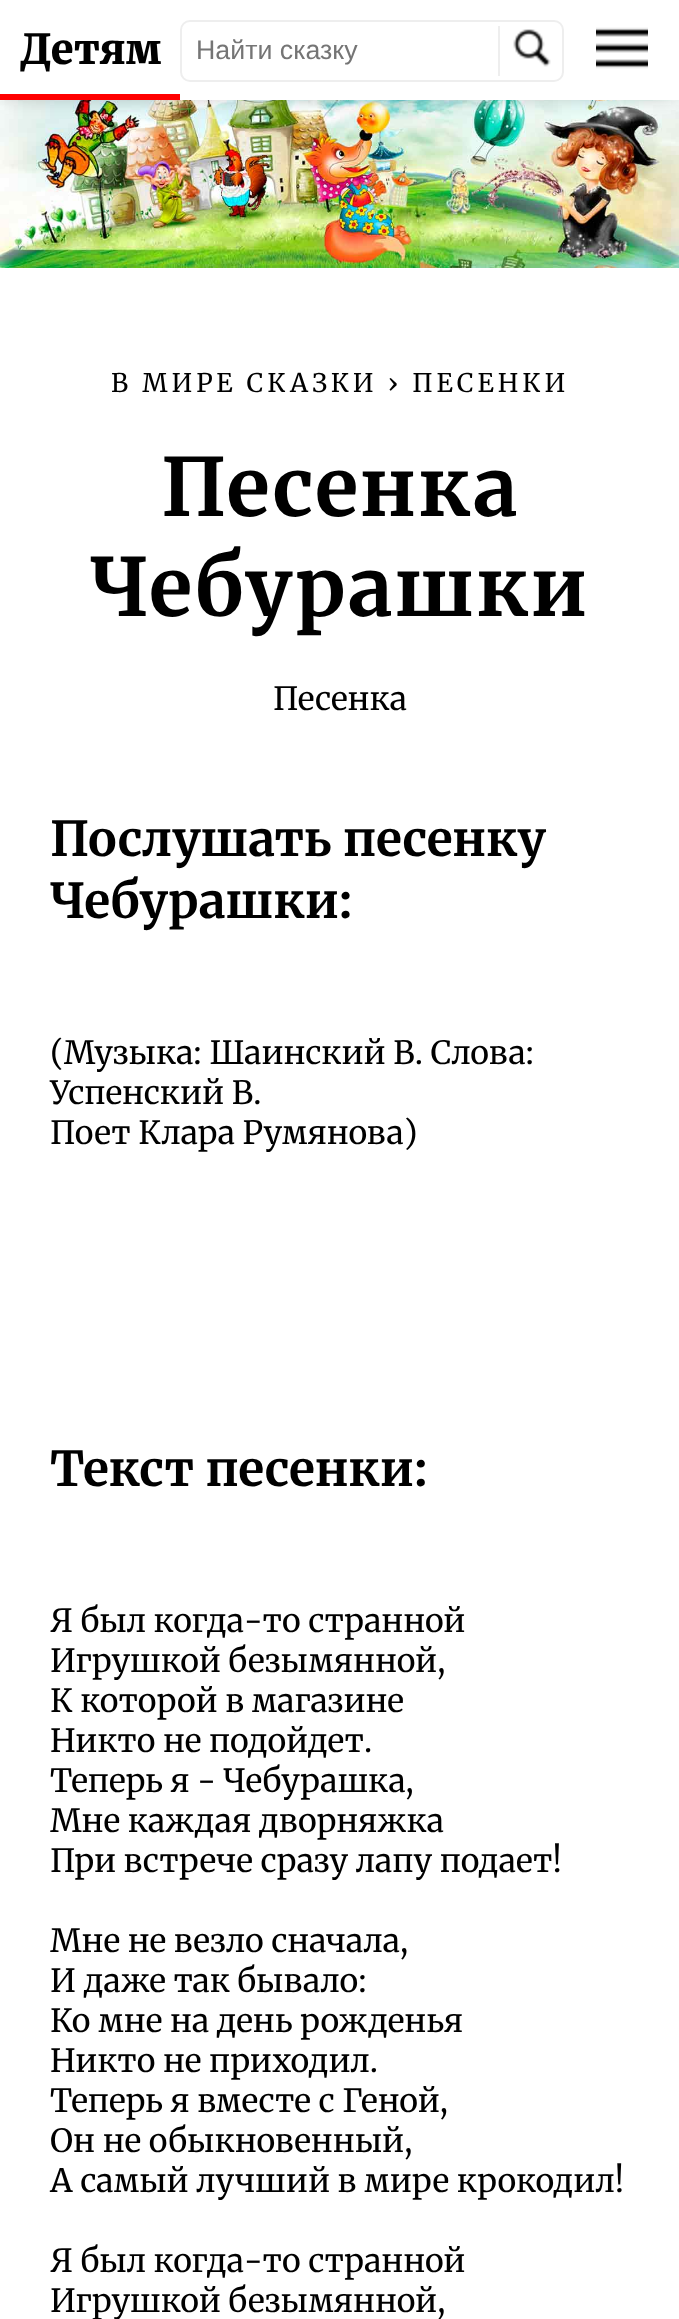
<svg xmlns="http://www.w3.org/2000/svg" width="679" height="2319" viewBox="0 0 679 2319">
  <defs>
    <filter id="blur1" x="-50%" y="-200%" width="200%" height="500%"><feGaussianBlur stdDeviation="10"/></filter>
  </defs>
  <rect width="100%" height="100%" fill="#ffffff"/>
  <image x="0" y="100" width="679" height="168" href="img3.png"/>
  <rect x="6" y="6" width="668" height="88" fill="#000000" fill-opacity="0.32" filter="url(#blur1)"/>
  <rect x="0" y="0" width="679" height="100" fill="#ffffff"/>
  <rect x="0" y="94" width="180" height="6" fill="#ff0000"/>
  <text x="20" y="64" font-family="Merriweather" font-size="41.5" font-weight="900" fill="#000000">Детям</text>
  <rect x="181" y="21" width="382" height="60" rx="9" fill="none" stroke="#eeeeee" stroke-width="2"/>
  <text x="196" y="59" font-family="Liberation Sans" font-size="26.75" fill="#757575">Найти сказку</text>
  <rect x="498" y="26" width="2" height="50" fill="#eeeeee"/>
  <image x="513" y="29" width="38" height="38" href="img1.png"/>
  <image x="596" y="27" width="52" height="42" href="img2.png"/>
  <text x="111" y="392" font-family="Merriweather" font-size="25.6" letter-spacing="4" fill="#000000">В МИРЕ СКАЗКИ › ПЕСЕНКИ</text>
  <text x="161" y="516" font-family="Merriweather" font-size="80" font-weight="bold" letter-spacing="2" fill="#000000">Песенка</text>
  <text x="90" y="616" font-family="Merriweather" font-size="80" font-weight="bold" letter-spacing="2" fill="#000000">Чебурашки</text>
  <text x="273" y="710" font-family="Merriweather" font-size="32" fill="#000000">Песенка</text>
  <text x="50" y="856" font-family="Merriweather" font-size="48" font-weight="bold" fill="#000000">Послушать песенку</text>
  <text x="50" y="918" font-family="Merriweather" font-size="48" font-weight="bold" fill="#000000">Чебурашки:</text>
  <text x="50" y="1064" font-family="Merriweather" font-size="32" fill="#000000">(Музыка: Шаинский В. Слова:</text>
  <text x="50" y="1104" font-family="Merriweather" font-size="32" fill="#000000">Успенский В.</text>
  <text x="50" y="1144" font-family="Merriweather" font-size="32" fill="#000000">Поет Клара Румянова)</text>
  <text x="50" y="1486" font-family="Merriweather" font-size="48" font-weight="bold" fill="#000000">Текст песенки:</text>
  <text x="50" y="1632" font-family="Merriweather" font-size="32" fill="#000000">Я был когда-то странной</text>
  <text x="50" y="1672" font-family="Merriweather" font-size="32" fill="#000000">Игрушкой безымянной,</text>
  <text x="50" y="1712" font-family="Merriweather" font-size="32" fill="#000000">К которой в магазине</text>
  <text x="50" y="1752" font-family="Merriweather" font-size="32" fill="#000000">Никто не подойдет.</text>
  <text x="50" y="1792" font-family="Merriweather" font-size="32" fill="#000000">Теперь я - Чебурашка,</text>
  <text x="50" y="1832" font-family="Merriweather" font-size="32" fill="#000000">Мне каждая дворняжка</text>
  <text x="50" y="1872" font-family="Merriweather" font-size="32" fill="#000000">При встрече сразу лапу подает!</text>
  <text x="50" y="1952" font-family="Merriweather" font-size="32" fill="#000000">Мне не везло сначала,</text>
  <text x="50" y="1992" font-family="Merriweather" font-size="32" fill="#000000">И даже так бывало:</text>
  <text x="50" y="2032" font-family="Merriweather" font-size="32" fill="#000000">Ко мне на день рожденья</text>
  <text x="50" y="2072" font-family="Merriweather" font-size="32" fill="#000000">Никто не приходил.</text>
  <text x="50" y="2112" font-family="Merriweather" font-size="32" fill="#000000">Теперь я вместе с Геной,</text>
  <text x="50" y="2152" font-family="Merriweather" font-size="32" fill="#000000">Он не обыкновенный,</text>
  <text x="50" y="2192" font-family="Merriweather" font-size="32" fill="#000000">А самый лучший в мире крокодил!</text>
  <text x="50" y="2272" font-family="Merriweather" font-size="32" fill="#000000">Я был когда-то странной</text>
  <text x="50" y="2312" font-family="Merriweather" font-size="32" fill="#000000">Игрушкой безымянной,</text>
</svg>
